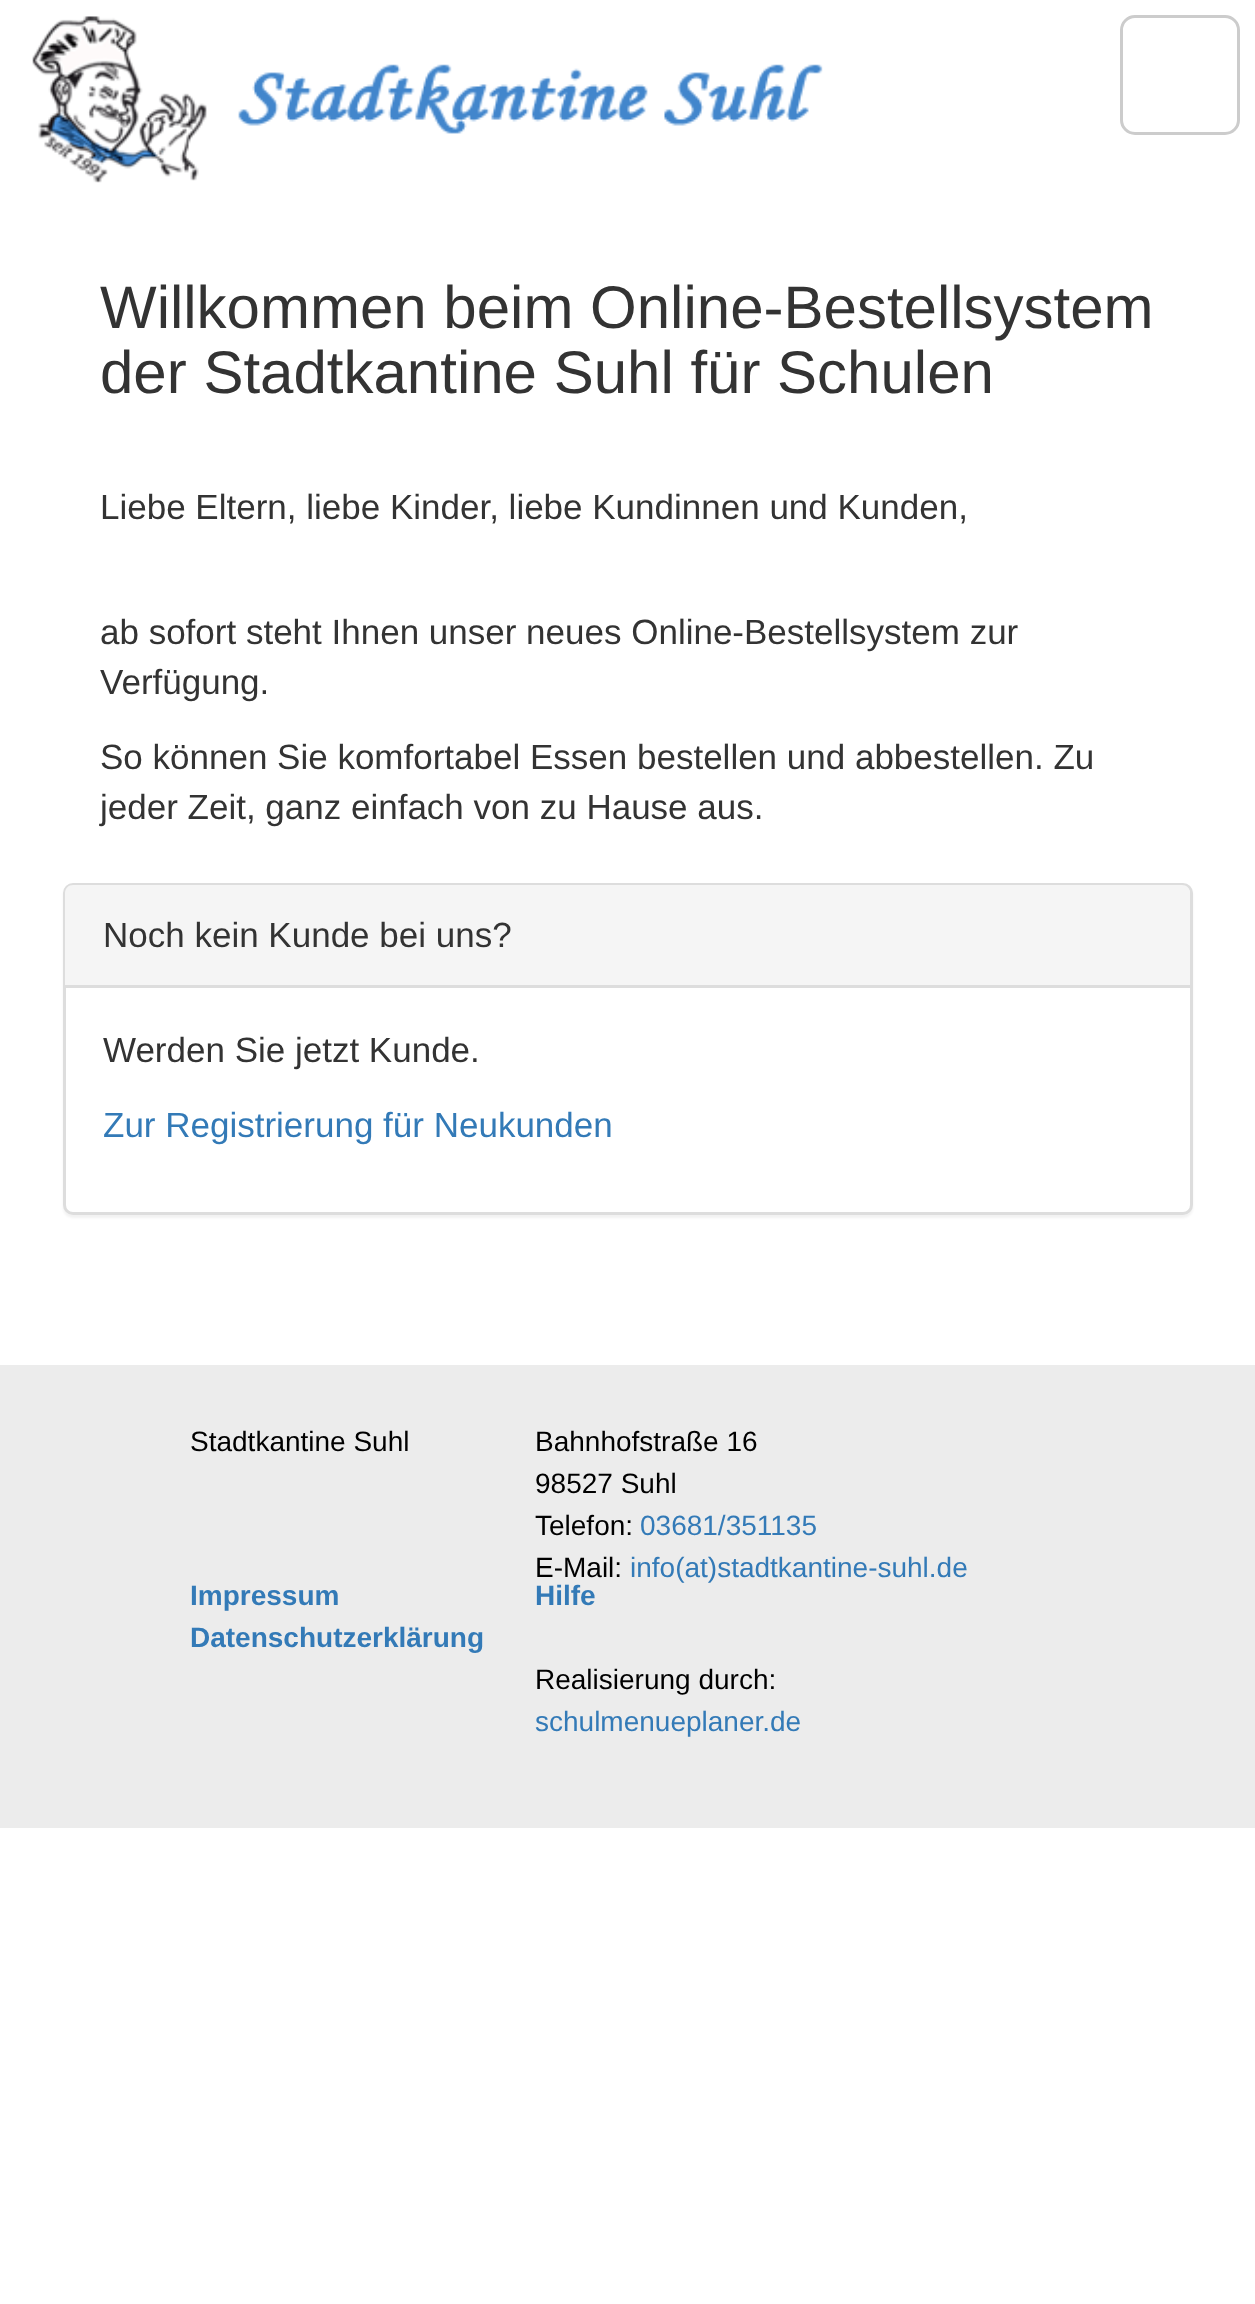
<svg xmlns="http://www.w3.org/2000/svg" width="1255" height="2304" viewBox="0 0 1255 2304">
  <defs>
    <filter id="blur1" x="-50%" y="-200%" width="200%" height="500%"><feGaussianBlur stdDeviation="1"/></filter>
  </defs>
  <rect width="100%" height="100%" fill="#ffffff"/>
  <image x="32" y="16" width="791" height="167" href="img1.png"/>
  <rect x="1121.5" y="16.5" width="117" height="117" rx="13.5" fill="none" stroke="#cccccc" stroke-width="3"/>
  <text x="100" y="328" font-family="Liberation Sans" font-size="60" fill="#333333">Willkommen beim Online-Bestellsystem</text>
  <text x="100" y="393" font-family="Liberation Sans" font-size="60" fill="#333333">der Stadtkantine Suhl für Schulen</text>
  <text x="100" y="519" font-family="Liberation Sans" font-size="35" fill="#333333">Liebe Eltern, liebe Kinder, liebe Kundinnen und Kunden,</text>
  <text x="100" y="644" font-family="Liberation Sans" font-size="35" fill="#333333">ab sofort steht Ihnen unser neues Online-Bestellsystem zur</text>
  <text x="100" y="694" font-family="Liberation Sans" font-size="35" fill="#333333">Verfügung.</text>
  <text x="100" y="769" font-family="Liberation Sans" font-size="35" fill="#333333">So können Sie komfortabel Essen bestellen und abbestellen. Zu</text>
  <text x="100" y="819" font-family="Liberation Sans" font-size="35" fill="#333333">jeder Zeit, ganz einfach von zu Hause aus.</text>
  <rect x="63" y="885" width="1130" height="333" rx="10" fill="#000000" fill-opacity="0.05" filter="url(#blur1)"/>
  <rect x="64.5" y="884.5" width="1127" height="329" rx="8.5" fill="#ffffff" stroke="#dddddd" stroke-width="3"/>
  <path d="M73 885H1182C1186.5 885 1190 888.5 1190 893V988H65V893C65 888.5 68.5 885 73 885Z" fill="#f5f5f5"/>
  <rect x="65" y="985" width="1125" height="3" fill="#dddddd"/>
  <text x="103" y="947" font-family="Liberation Sans" font-size="35" fill="#333333">Noch kein Kunde bei uns?</text>
  <text x="103" y="1062" font-family="Liberation Sans" font-size="35" fill="#333333">Werden Sie jetzt Kunde.</text>
  <text x="103" y="1137" font-family="Liberation Sans" font-size="35" fill="#337ab7">Zur Registrierung für Neukunden</text>
  <rect x="0" y="1365" width="1255" height="463" fill="#ececec"/>
  <text x="190" y="1451" font-family="Liberation Sans" font-size="28" fill="#000000">Stadtkantine Suhl</text>
  <text x="535" y="1451" font-family="Liberation Sans" font-size="28" fill="#000000">Bahnhofstraße 16</text>
  <text x="535" y="1493" font-family="Liberation Sans" font-size="28" fill="#000000">98527 Suhl</text>
  <text x="535" y="1535" font-family="Liberation Sans" font-size="28" fill="#000000">Telefon:</text>
  <text x="640" y="1535" font-family="Liberation Sans" font-size="28" fill="#337ab7">03681/351135</text>
  <text x="535" y="1577" font-family="Liberation Sans" font-size="28" fill="#000000">E-Mail:</text>
  <text x="630" y="1577" font-family="Liberation Sans" font-size="28" fill="#337ab7">info(at)stadtkantine-suhl.de</text>
  <text x="190" y="1605" font-family="Liberation Sans" font-size="28" font-weight="bold" fill="#337ab7">Impressum</text>
  <text x="190" y="1647" font-family="Liberation Sans" font-size="28" font-weight="bold" fill="#337ab7">Datenschutzerklärung</text>
  <text x="535" y="1605" font-family="Liberation Sans" font-size="28" font-weight="bold" fill="#337ab7">Hilfe</text>
  <text x="535" y="1689" font-family="Liberation Sans" font-size="28" fill="#000000">Realisierung durch:</text>
  <text x="535" y="1731" font-family="Liberation Sans" font-size="28" fill="#337ab7">schulmenueplaner.de</text>
</svg>
